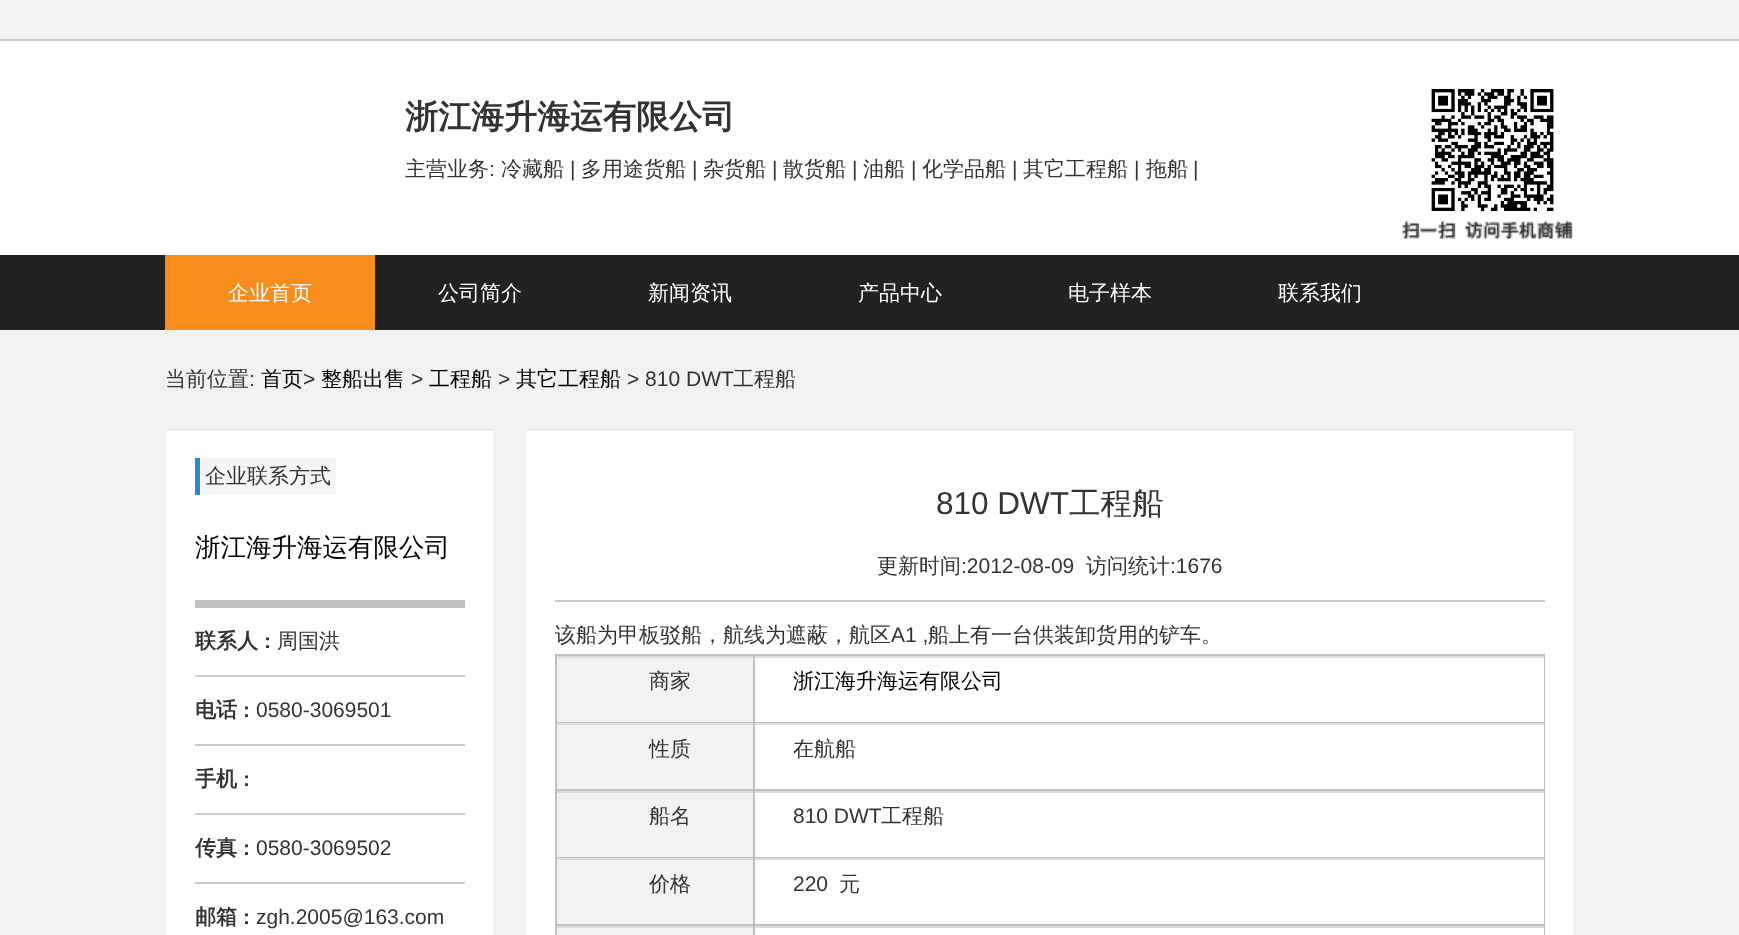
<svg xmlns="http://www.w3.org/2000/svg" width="1739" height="935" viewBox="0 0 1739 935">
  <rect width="100%" height="100%" fill="#f1f1f1"/>
  <rect x="0" y="41" width="1739" height="214" fill="#ffffff"/>
  <rect x="0" y="39" width="1739" height="2" fill="#cccccc"/>
  <text x="405" y="128" font-family="WenQuanYi Zen Hei" font-size="33" font-weight="bold" fill="#333333">浙江海升海运有限公司</text>
  <text x="405" y="176" font-family="WenQuanYi Zen Hei" font-size="21" font-weight="500" fill="#333333">主营业务</text>
  <text x="489" y="176" font-family="Liberation Sans" font-size="21" fill="#333333">:</text>
  <text x="501" y="176" font-family="WenQuanYi Zen Hei" font-size="21" font-weight="500" fill="#333333">冷藏船</text>
  <text x="570" y="176" font-family="Liberation Sans" font-size="21" fill="#333333">|</text>
  <text x="581" y="176" font-family="WenQuanYi Zen Hei" font-size="21" font-weight="500" fill="#333333">多用途货船</text>
  <text x="692" y="176" font-family="Liberation Sans" font-size="21" fill="#333333">|</text>
  <text x="703" y="176" font-family="WenQuanYi Zen Hei" font-size="21" font-weight="500" fill="#333333">杂货船</text>
  <text x="772" y="176" font-family="Liberation Sans" font-size="21" fill="#333333">|</text>
  <text x="783" y="176" font-family="WenQuanYi Zen Hei" font-size="21" font-weight="500" fill="#333333">散货船</text>
  <text x="852" y="176" font-family="Liberation Sans" font-size="21" fill="#333333">|</text>
  <text x="863" y="176" font-family="WenQuanYi Zen Hei" font-size="21" font-weight="500" fill="#333333">油船</text>
  <text x="911" y="176" font-family="Liberation Sans" font-size="21" fill="#333333">|</text>
  <text x="922" y="176" font-family="WenQuanYi Zen Hei" font-size="21" font-weight="500" fill="#333333">化学品船</text>
  <text x="1012" y="176" font-family="Liberation Sans" font-size="21" fill="#333333">|</text>
  <text x="1023" y="176" font-family="WenQuanYi Zen Hei" font-size="21" font-weight="500" fill="#333333">其它工程船</text>
  <text x="1134" y="176" font-family="Liberation Sans" font-size="21" fill="#333333">|</text>
  <text x="1146" y="176" font-family="WenQuanYi Zen Hei" font-size="21" font-weight="500" fill="#333333">拖船</text>
  <text x="1193" y="176" font-family="Liberation Sans" font-size="21" fill="#333333">|</text>
  <image x="1402" y="220" width="171" height="20" href="img1.png"/>
  <image x="1431" y="89" width="123" height="122" href="img2.png"/>
  <rect x="0" y="255" width="1739" height="75" fill="#222222"/>
  <rect x="165" y="255" width="210" height="75" fill="#f78d1d"/>
  <text x="228" y="300" font-family="WenQuanYi Zen Hei" font-size="21" font-weight="500" fill="#ffffff">企业首页</text>
  <text x="438" y="300" font-family="WenQuanYi Zen Hei" font-size="21" font-weight="500" fill="#ffffff">公司简介</text>
  <text x="648" y="300" font-family="WenQuanYi Zen Hei" font-size="21" font-weight="500" fill="#ffffff">新闻资讯</text>
  <text x="858" y="300" font-family="WenQuanYi Zen Hei" font-size="21" font-weight="500" fill="#ffffff">产品中心</text>
  <text x="1068" y="300" font-family="WenQuanYi Zen Hei" font-size="21" font-weight="500" fill="#ffffff">电子样本</text>
  <text x="1278" y="300" font-family="WenQuanYi Zen Hei" font-size="21" font-weight="500" fill="#ffffff">联系我们</text>
  <text x="165" y="386" font-family="WenQuanYi Zen Hei" font-size="21" font-weight="500" fill="#333333">当前位置</text>
  <text x="249" y="386" font-family="Liberation Sans" font-size="21" fill="#333333">:</text>
  <text x="261" y="386" font-family="WenQuanYi Zen Hei" font-size="21" font-weight="500" fill="#000000">首页</text>
  <text x="303" y="386" font-family="Liberation Sans" font-size="21" fill="#333333">&gt;</text>
  <text x="321" y="386" font-family="WenQuanYi Zen Hei" font-size="21" font-weight="500" fill="#000000">整船出售</text>
  <text x="411" y="386" font-family="Liberation Sans" font-size="21" fill="#333333">&gt;</text>
  <text x="429" y="386" font-family="WenQuanYi Zen Hei" font-size="21" font-weight="500" fill="#000000">工程船</text>
  <text x="498" y="386" font-family="Liberation Sans" font-size="21" fill="#333333">&gt;</text>
  <text x="516" y="386" font-family="WenQuanYi Zen Hei" font-size="21" font-weight="500" fill="#000000">其它工程船</text>
  <text x="627" y="386" font-family="Liberation Sans" font-size="21" fill="#333333">&gt; 810 DWT</text>
  <text x="733" y="386" font-family="WenQuanYi Zen Hei" font-size="21" font-weight="500" fill="#333333">工程船</text>
  <rect x="165" y="428" width="330" height="507" fill="#ffffff"/>
  <rect x="167" y="429" width="327" height="2" fill="#f2f2f2"/>
  <rect x="166" y="429" width="328" height="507" fill="none" stroke="#000000" stroke-opacity="0.05" stroke-width="2"/>
  <rect x="200" y="458" width="136" height="37" fill="#f5f5f5"/>
  <rect x="195" y="458" width="5" height="37" fill="#3387c4"/>
  <text x="205" y="483" font-family="WenQuanYi Zen Hei" font-size="21" font-weight="500" fill="#333333">企业联系方式</text>
  <text x="195" y="556" font-family="WenQuanYi Zen Hei" font-size="25.5" font-weight="500" fill="#000000">浙江海升海运有限公司</text>
  <rect x="195" y="600" width="270" height="8" fill="#c1c1c1"/>
  <text x="195" y="648" font-family="WenQuanYi Zen Hei" font-size="21" font-weight="bold" fill="#333333">联系人</text>
  <text x="264" y="648" font-family="Liberation Sans" font-size="21" font-weight="bold" fill="#333333">:</text>
  <text x="277" y="648" font-family="WenQuanYi Zen Hei" font-size="21" font-weight="500" fill="#333333">周国洪</text>
  <rect x="195" y="675" width="270" height="2" fill="#cccccc"/>
  <text x="195" y="717" font-family="WenQuanYi Zen Hei" font-size="21" font-weight="bold" fill="#333333">电话</text>
  <text x="243" y="717" font-family="Liberation Sans" font-size="21" font-weight="bold" fill="#333333">:</text>
  <text x="256" y="717" font-family="Liberation Sans" font-size="21" fill="#333333">0580-3069501</text>
  <rect x="195" y="744" width="270" height="2" fill="#cccccc"/>
  <text x="195" y="786" font-family="WenQuanYi Zen Hei" font-size="21" font-weight="bold" fill="#333333">手机</text>
  <text x="243" y="786" font-family="Liberation Sans" font-size="21" font-weight="bold" fill="#333333">:</text>
  <rect x="195" y="813" width="270" height="2" fill="#cccccc"/>
  <text x="195" y="855" font-family="WenQuanYi Zen Hei" font-size="21" font-weight="bold" fill="#333333">传真</text>
  <text x="243" y="855" font-family="Liberation Sans" font-size="21" font-weight="bold" fill="#333333">:</text>
  <text x="256" y="855" font-family="Liberation Sans" font-size="21" fill="#333333">0580-3069502</text>
  <rect x="195" y="882" width="270" height="2" fill="#cccccc"/>
  <text x="195" y="924" font-family="WenQuanYi Zen Hei" font-size="21" font-weight="bold" fill="#333333">邮箱</text>
  <text x="243" y="924" font-family="Liberation Sans" font-size="21" font-weight="bold" fill="#333333">:</text>
  <text x="256" y="924" font-family="Liberation Sans" font-size="21" fill="#333333">zgh.2005@163.com</text>
  <rect x="525" y="428" width="1050" height="507" fill="#ffffff"/>
  <rect x="527" y="429" width="1047" height="2" fill="#f2f2f2"/>
  <rect x="526" y="429" width="1048" height="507" fill="none" stroke="#000000" stroke-opacity="0.05" stroke-width="2"/>
  <text x="936" y="514" font-family="Liberation Sans" font-size="31.5" fill="#333333">810 DWT</text>
  <text x="1069" y="514" font-family="WenQuanYi Zen Hei" font-size="31.5" font-weight="500" fill="#333333">工程船</text>
  <text x="877" y="573" font-family="WenQuanYi Zen Hei" font-size="21" font-weight="500" fill="#333333">更新时间</text>
  <text x="961" y="573" font-family="Liberation Sans" font-size="21" fill="#333333">:2012-08-09</text>
  <text x="1086" y="573" font-family="WenQuanYi Zen Hei" font-size="21" font-weight="500" fill="#333333">访问统计</text>
  <text x="1170" y="573" font-family="Liberation Sans" font-size="21" fill="#333333">:1676</text>
  <rect x="555" y="600" width="990" height="2" fill="#cccccc"/>
  <text x="555" y="642" font-family="WenQuanYi Zen Hei" font-size="21" font-weight="500" fill="#333333">该船为甲板驳船，航线为遮蔽，航区</text>
  <text x="891" y="642" font-family="Liberation Sans" font-size="21" fill="#333333">A1 ,</text>
  <text x="928" y="642" font-family="WenQuanYi Zen Hei" font-size="21" font-weight="500" fill="#333333">船上有一台供装卸货用的铲车。</text>
  <rect x="555" y="654" width="990" height="281" fill="#c0c0c0"/>
  <rect x="557" y="658" width="196" height="64" fill="#f2f2f2"/>
  <rect x="557" y="656" width="196" height="2" fill="#dddddd"/>
  <text x="649" y="688" font-family="WenQuanYi Zen Hei" font-size="21" font-weight="500" fill="#333333">商家</text>
  <rect x="755" y="658" width="789" height="64" fill="#ffffff"/>
  <rect x="755" y="656" width="789" height="2" fill="#dddddd"/>
  <text x="793" y="688" font-family="WenQuanYi Zen Hei" font-size="21" font-weight="500" fill="#000000">浙江海升海运有限公司</text>
  <rect x="557" y="725" width="196" height="64" fill="#f2f2f2"/>
  <rect x="557" y="723" width="196" height="2" fill="#dddddd"/>
  <text x="649" y="756" font-family="WenQuanYi Zen Hei" font-size="21" font-weight="500" fill="#333333">性质</text>
  <rect x="755" y="725" width="789" height="64" fill="#ffffff"/>
  <rect x="755" y="723" width="789" height="2" fill="#dddddd"/>
  <text x="793" y="756" font-family="WenQuanYi Zen Hei" font-size="21" font-weight="500" fill="#333333">在航船</text>
  <rect x="557" y="793" width="196" height="64" fill="#f2f2f2"/>
  <rect x="557" y="791" width="196" height="2" fill="#dddddd"/>
  <text x="649" y="823" font-family="WenQuanYi Zen Hei" font-size="21" font-weight="500" fill="#333333">船名</text>
  <rect x="755" y="793" width="789" height="64" fill="#ffffff"/>
  <rect x="755" y="791" width="789" height="2" fill="#dddddd"/>
  <text x="793" y="823" font-family="Liberation Sans" font-size="21" fill="#333333">810 DWT</text>
  <text x="881" y="823" font-family="WenQuanYi Zen Hei" font-size="21" font-weight="500" fill="#333333">工程船</text>
  <rect x="557" y="860" width="196" height="64" fill="#f2f2f2"/>
  <rect x="557" y="858" width="196" height="2" fill="#dddddd"/>
  <text x="649" y="891" font-family="WenQuanYi Zen Hei" font-size="21" font-weight="500" fill="#333333">价格</text>
  <rect x="755" y="860" width="789" height="64" fill="#ffffff"/>
  <rect x="755" y="858" width="789" height="2" fill="#dddddd"/>
  <text x="793" y="891" font-family="Liberation Sans" font-size="21" fill="#333333">220</text>
  <text x="839" y="891" font-family="WenQuanYi Zen Hei" font-size="21" font-weight="500" fill="#333333">元</text>
  <rect x="557" y="928" width="196" height="7" fill="#f2f2f2"/>
  <rect x="557" y="926" width="196" height="2" fill="#dddddd"/>
  <rect x="755" y="928" width="789" height="7" fill="#ffffff"/>
  <rect x="755" y="926" width="789" height="2" fill="#dddddd"/>
</svg>
